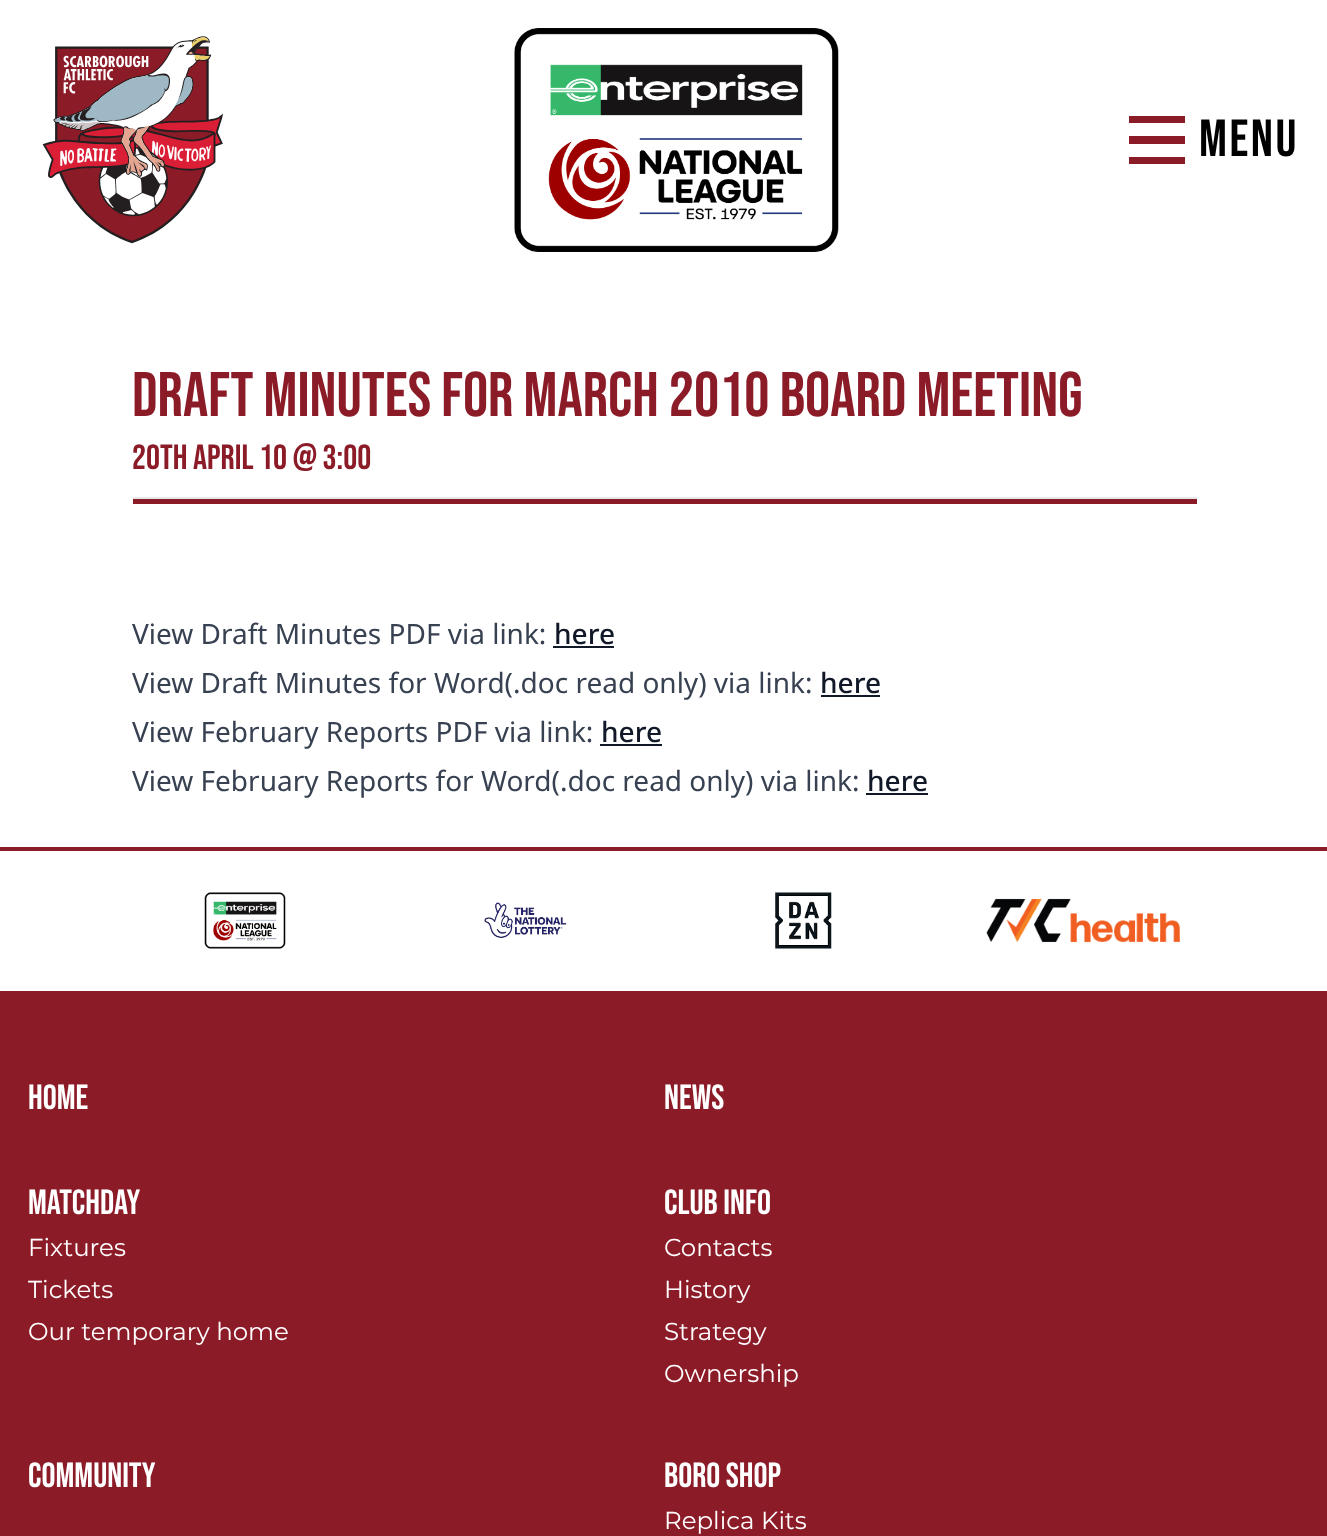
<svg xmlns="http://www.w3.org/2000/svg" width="1327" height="1536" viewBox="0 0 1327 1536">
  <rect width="100%" height="100%" fill="#ffffff"/>
  <image x="42" y="36" width="181" height="208" href="img1.png"/>
  <image x="514" y="28" width="325" height="224" href="img2.png"/>
  <rect x="1129" y="116" width="56" height="7" fill="#8c1b28"/>
  <rect x="1129" y="136" width="56" height="8" fill="#8c1b28"/>
  <rect x="1129" y="157" width="56" height="7" fill="#8c1b28"/>
  <text x="1199" y="156" font-family="Bebas Neue" font-size="52" letter-spacing="2.5" fill="#000000">Menu</text>
  <text x="132" y="416" font-family="Bebas Neue" font-size="63" fill="#8c1b28">Draft Minutes for March 2010 Board Meeting</text>
  <text x="132" y="469" font-family="Bebas Neue" font-size="35" fill="#8c1b28">20th April 10 @ 3:00</text>
  <rect x="133" y="499" width="1064" height="5" fill="#8c1b28"/>
  <rect x="133" y="497" width="1064" height="2" fill="#e5e7eb"/>
  <text x="132" y="644" font-family="Noto Sans" font-size="28" fill="#374151">View Draft Minutes PDF via link:</text>
  <text x="554" y="644" font-family="Noto Sans" font-size="28" font-weight="500" fill="#111827">here</text>
  <rect x="553" y="646" width="61" height="2" fill="#111827"/>
  <text x="132" y="693" font-family="Noto Sans" font-size="28" fill="#374151">View Draft Minutes for Word(.doc read only) via link:</text>
  <text x="820" y="693" font-family="Noto Sans" font-size="28" font-weight="500" fill="#111827">here</text>
  <rect x="821" y="695" width="59" height="2" fill="#111827"/>
  <text x="132" y="742" font-family="Noto Sans" font-size="28" fill="#374151">View February Reports PDF via link:</text>
  <text x="601" y="742" font-family="Noto Sans" font-size="28" font-weight="500" fill="#111827">here</text>
  <rect x="600" y="744" width="62" height="2" fill="#111827"/>
  <text x="132" y="791" font-family="Noto Sans" font-size="28" fill="#374151">View February Reports for Word(.doc read only) via link:</text>
  <text x="867" y="791" font-family="Noto Sans" font-size="28" font-weight="500" fill="#111827">here</text>
  <rect x="866" y="793" width="62" height="2" fill="#111827"/>
  <rect x="0" y="847" width="1327" height="4" fill="#8c1b28"/>
  <image x="204" y="892" width="82" height="57" href="img3.png"/>
  <image x="484" y="902" width="83" height="36" href="img4.png"/>
  <image x="775" y="892" width="57" height="57" href="img5.png"/>
  <image x="986" y="898" width="194" height="45" href="img6.png"/>
  <rect x="0" y="991" width="1327" height="545" fill="#8c1b28"/>
  <text x="28" y="1109" font-family="Bebas Neue" font-size="35" fill="#ffffff">Home</text>
  <text x="664" y="1109" font-family="Bebas Neue" font-size="35" fill="#ffffff">News</text>
  <text x="28" y="1214" font-family="Bebas Neue" font-size="35" fill="#ffffff">Matchday</text>
  <text x="28" y="1256" font-family="Montserrat" font-size="24.5" fill="#ffffff">Fixtures</text>
  <text x="28" y="1298" font-family="Montserrat" font-size="24.5" fill="#ffffff">Tickets</text>
  <text x="28" y="1340" font-family="Montserrat" font-size="24.5" fill="#ffffff">Our temporary home</text>
  <text x="664" y="1214" font-family="Bebas Neue" font-size="35" fill="#ffffff">Club Info</text>
  <text x="664" y="1256" font-family="Montserrat" font-size="24.5" fill="#ffffff">Contacts</text>
  <text x="664" y="1298" font-family="Montserrat" font-size="24.5" fill="#ffffff">History</text>
  <text x="664" y="1340" font-family="Montserrat" font-size="24.5" fill="#ffffff">Strategy</text>
  <text x="664" y="1382" font-family="Montserrat" font-size="24.5" fill="#ffffff">Ownership</text>
  <text x="28" y="1487" font-family="Bebas Neue" font-size="35" fill="#ffffff">Community</text>
  <text x="664" y="1487" font-family="Bebas Neue" font-size="35" fill="#ffffff">Boro Shop</text>
  <text x="664" y="1529" font-family="Montserrat" font-size="24.5" fill="#ffffff">Replica Kits</text>
</svg>
